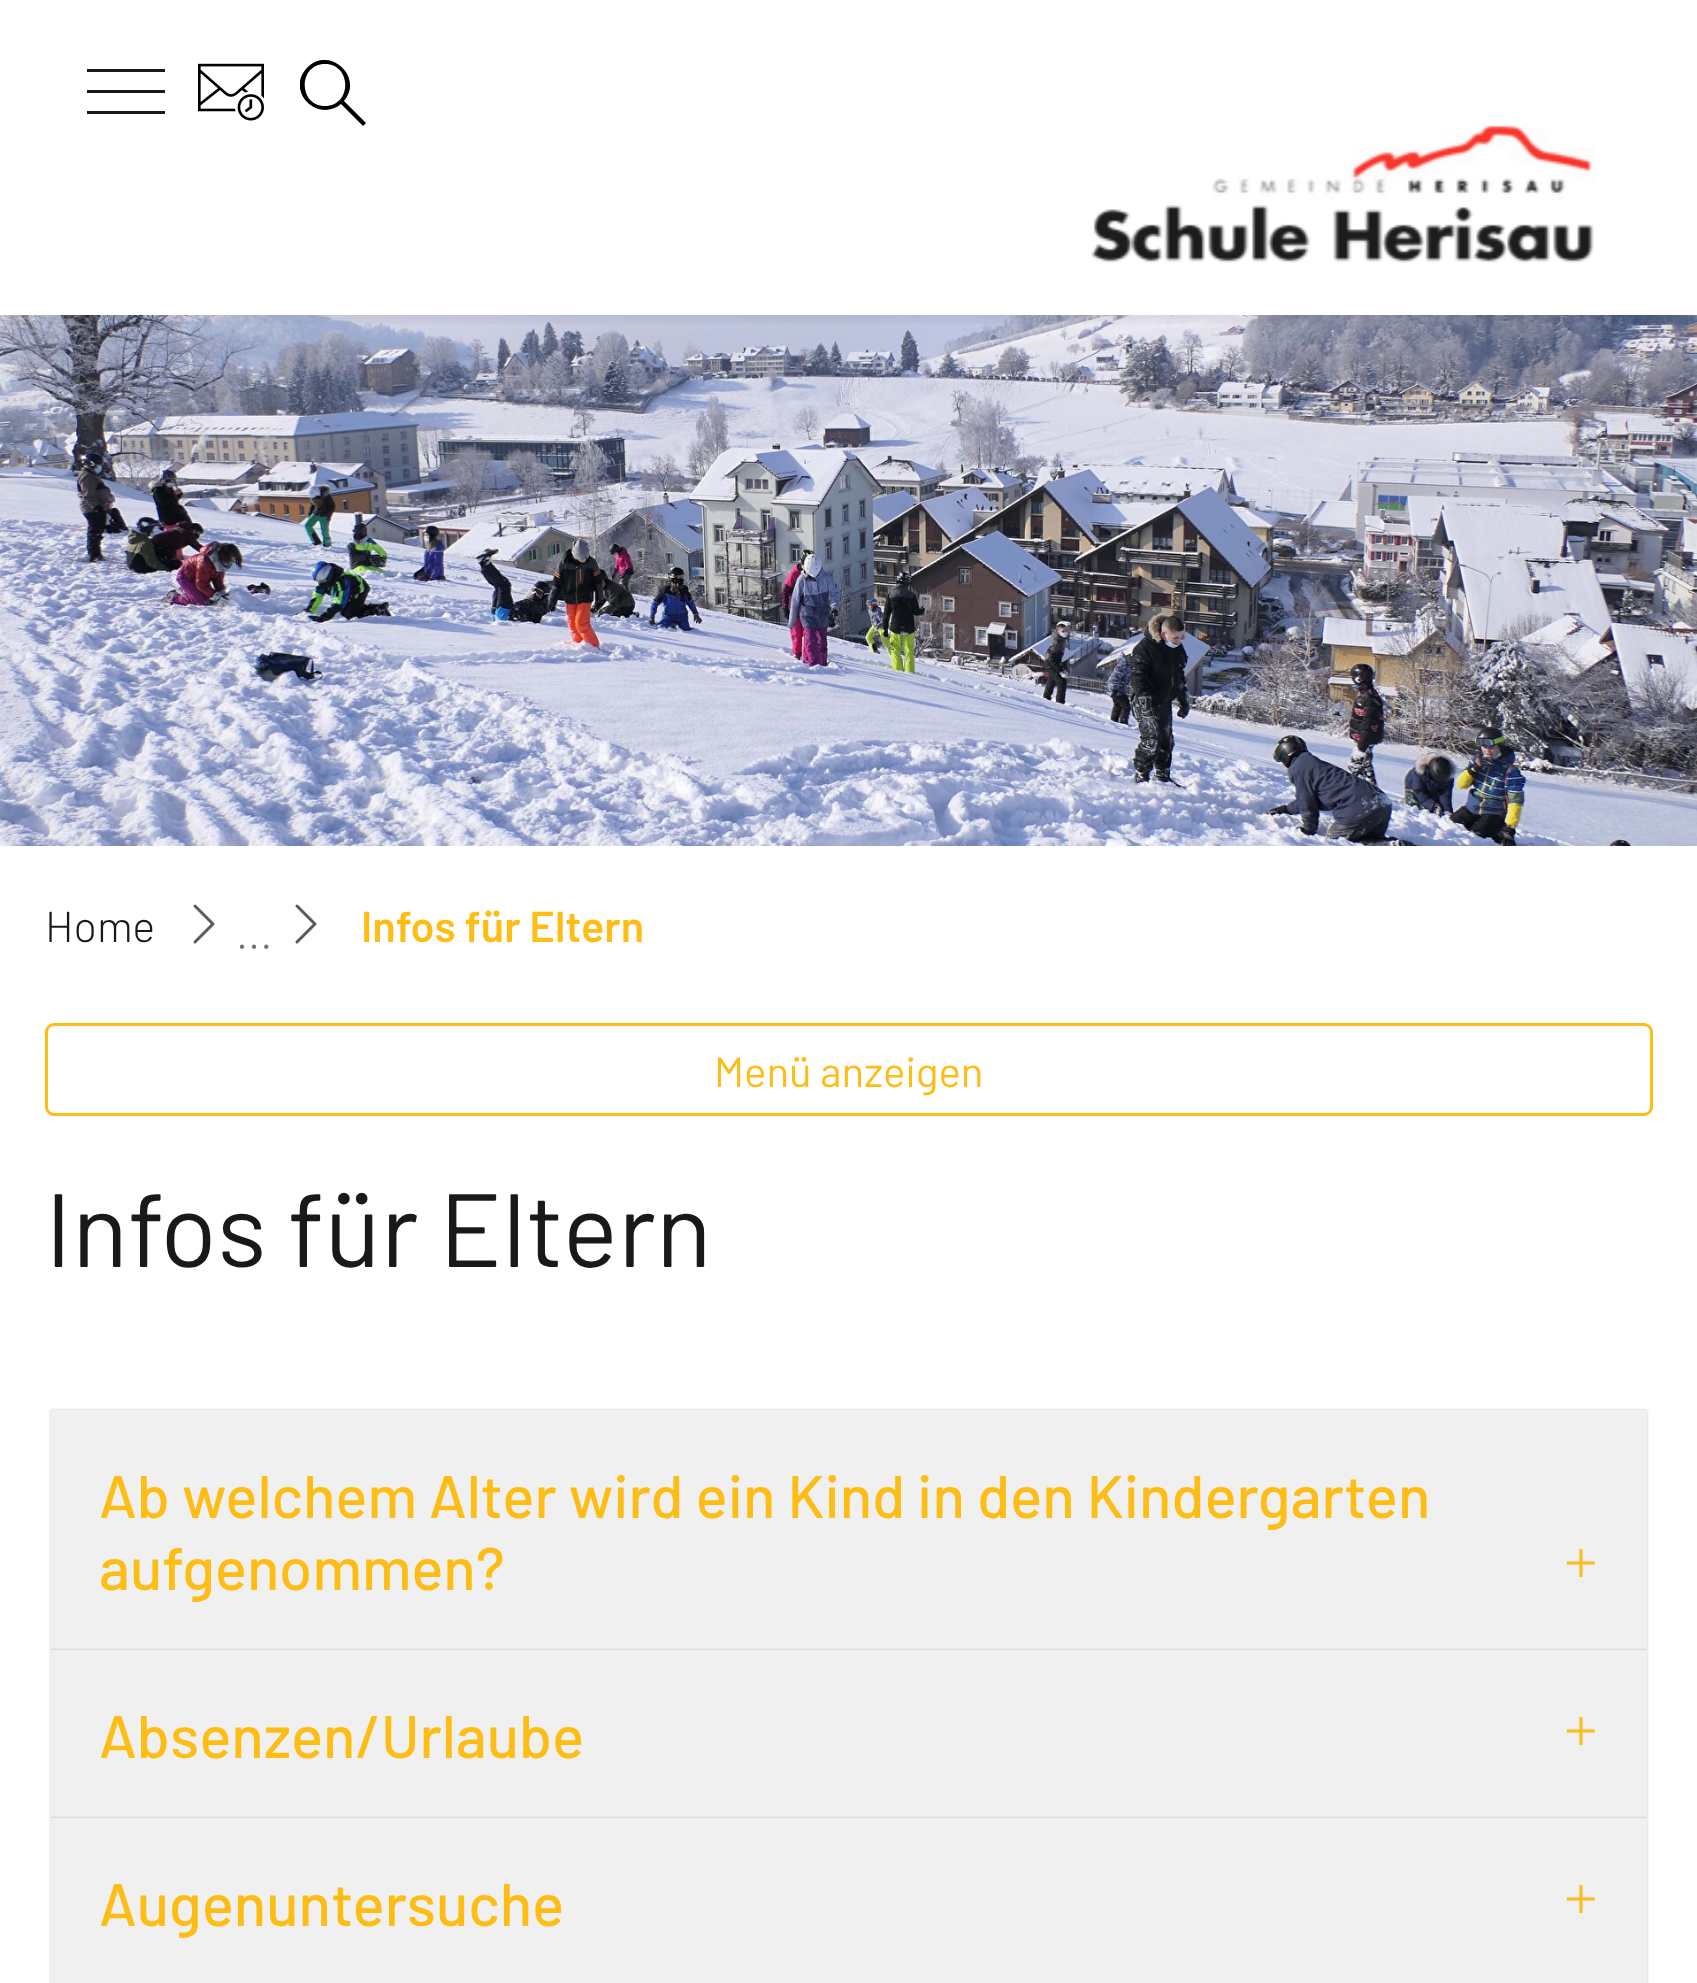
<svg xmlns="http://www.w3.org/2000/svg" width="1697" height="1983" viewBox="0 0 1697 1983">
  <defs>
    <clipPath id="clip1"><rect x="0" y="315" width="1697" height="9"/></clipPath>
    <filter id="blur1" x="-50%" y="-200%" width="200%" height="500%"><feGaussianBlur stdDeviation="6"/></filter>
    <clipPath id="clip2"><rect x="300" y="60" width="66" height="66"/></clipPath>
    <filter id="blur2" x="-50%" y="-200%" width="200%" height="500%"><feGaussianBlur stdDeviation="1.5"/></filter>
  </defs>
  <rect width="100%" height="100%" fill="#ffffff"/>
  <image x="0" y="315" width="1697" height="531" href="img3.png"/>
  <g clip-path="url(#clip1)">
    <rect x="0" y="6" width="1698" height="315" fill="#000000" fill-opacity="0.07" filter="url(#blur1)"/>
  </g>
  <rect x="87" y="69" width="78" height="3" fill="#1a1919"/>
  <rect x="87" y="90" width="78" height="3" fill="#1a1919"/>
  <rect x="87" y="111" width="78" height="3" fill="#1a1919"/>
  <image x="198" y="63" width="66" height="58" href="img1.png"/>
  <g clip-path="url(#clip2)">
    <path d="M344 101C365 76 327 44 306 69C286 92 318 123 341 104L363 126L366 123ZM325 106C298 106 298 64 325 64C352 64 352 106 325 106Z" fill="#000000"/>
  </g>
  <image x="1091" y="125" width="506" height="138" href="img2.png"/>
  <text x="45" y="942" font-family="Barlow" font-size="43.25" font-weight="300" fill="#1a1919">Home</text>
  <text x="361" y="942" font-family="Barlow" font-size="43.25" font-weight="600" fill="#febd15">Infos für Eltern</text>
  <image x="193" y="904" width="124" height="40" href="img4.png"/>
  <text x="236" y="949" font-family="Barlow" font-size="43.25" font-weight="300" fill="#6c757d">...</text>
  <rect x="46.5" y="1024.5" width="1605" height="90" rx="7.5" fill="none" stroke="#febd15" stroke-width="3"/>
  <text x="714" y="1087" font-family="Barlow" font-size="42" fill="#febd15">Menü anzeigen</text>
  <text x="45" y="1267" font-family="Barlow" font-size="104" fill="#1a1919">Infos für Eltern</text>
  <rect x="51" y="1410" width="1596" height="240" fill="#000000" fill-opacity="0.08" filter="url(#blur2)"/>
  <rect x="51" y="1410" width="1596" height="240" fill="#000000" fill-opacity="0.16" filter="url(#blur2)"/>
  <rect x="51" y="1410" width="1596" height="240" fill="#f0f0f0"/>
  <text x="99" y="1518" font-family="Barlow" font-size="60" font-weight="500" fill="#febd15">Ab welchem Alter wird ein Kind in den Kindergarten</text>
  <text x="99" y="1590" font-family="Barlow" font-size="60" font-weight="500" fill="#febd15">aufgenommen?</text>
  <text x="1561" y="1546" transform="rotate(90 1561 1546)" font-family="Liberation Serif" font-size="60" fill="#febd15">+</text>
  <rect x="51" y="1650" width="1596" height="168" fill="#000000" fill-opacity="0.08" filter="url(#blur2)"/>
  <rect x="51" y="1650" width="1596" height="168" fill="#000000" fill-opacity="0.16" filter="url(#blur2)"/>
  <rect x="51" y="1650" width="1596" height="168" fill="#f0f0f0"/>
  <text x="99" y="1758" font-family="Barlow" font-size="60" font-weight="500" fill="#febd15">Absenzen/Urlaube</text>
  <text x="1561" y="1714" transform="rotate(90 1561 1714)" font-family="Liberation Serif" font-size="60" fill="#febd15">+</text>
  <rect x="51" y="1818" width="1596" height="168" fill="#000000" fill-opacity="0.08" filter="url(#blur2)"/>
  <rect x="51" y="1818" width="1596" height="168" fill="#000000" fill-opacity="0.16" filter="url(#blur2)"/>
  <rect x="51" y="1818" width="1596" height="165" fill="#f0f0f0"/>
  <text x="99" y="1926" font-family="Barlow" font-size="60" font-weight="500" fill="#febd15">Augenuntersuche</text>
  <text x="1561" y="1882" transform="rotate(90 1561 1882)" font-family="Liberation Serif" font-size="60" fill="#febd15">+</text>
</svg>
